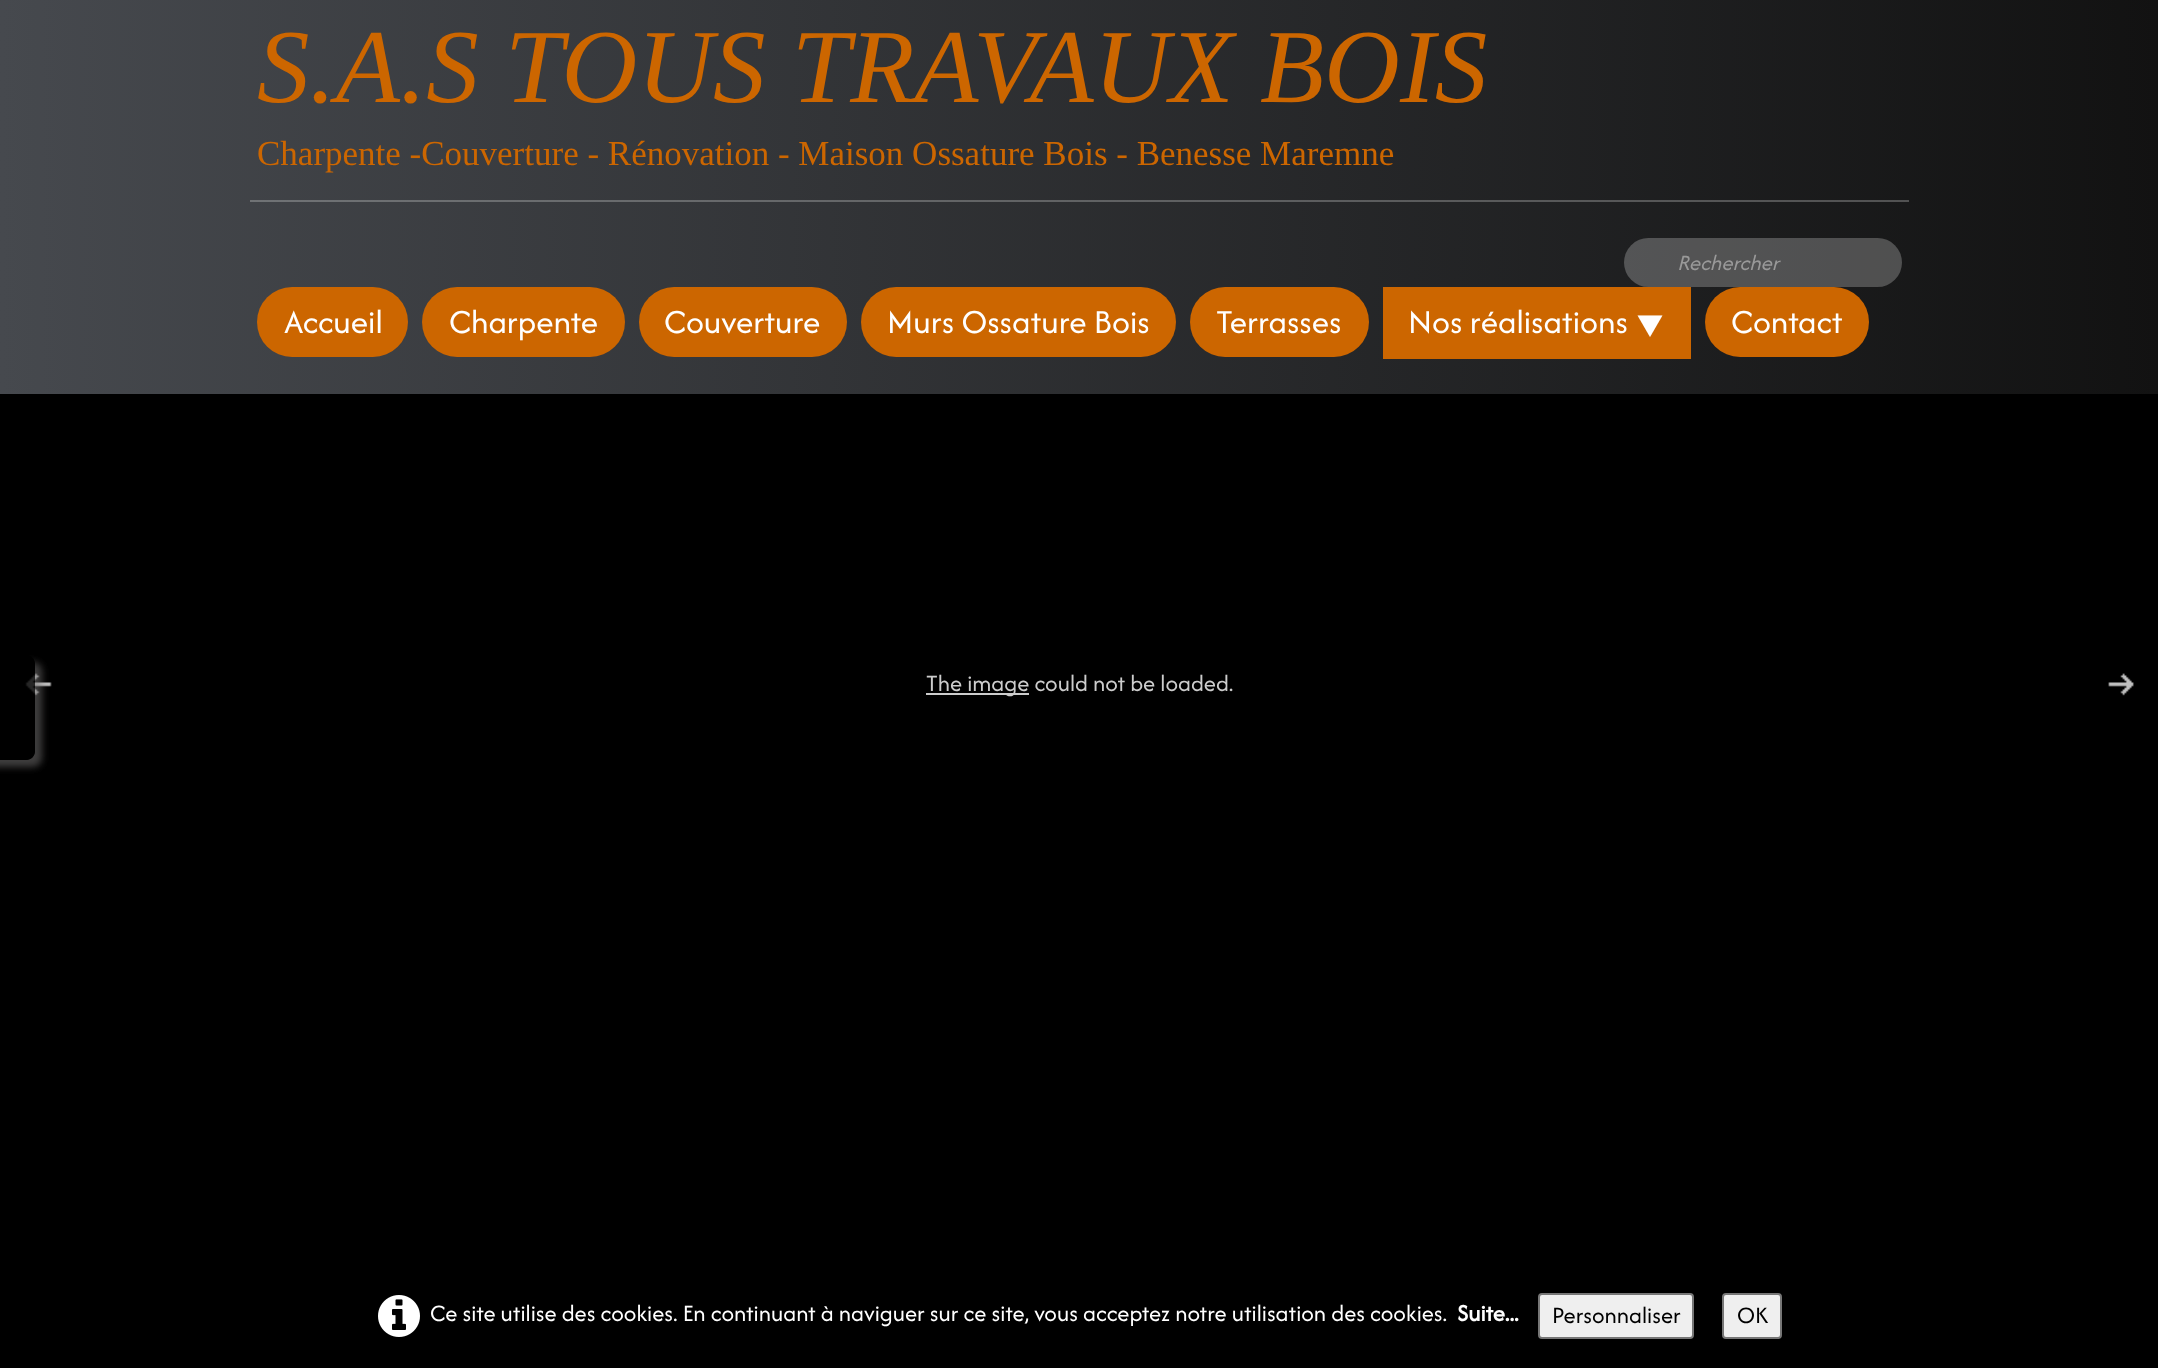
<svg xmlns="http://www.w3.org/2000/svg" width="2158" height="1368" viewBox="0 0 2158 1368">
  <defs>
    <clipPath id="clip1"><path d="M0 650H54V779H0ZM-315 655H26C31 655 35 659 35 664V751C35 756 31 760 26 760H-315Z" clip-rule="evenodd"/></clipPath>
    <filter id="blur1" x="-50%" y="-200%" width="200%" height="500%"><feGaussianBlur stdDeviation="3.5"/></filter>
    <linearGradient id="g1" gradientUnits="userSpaceOnUse" x1="0" y1="197" x2="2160" y2="197"><stop offset="0" stop-color="#46494e"/><stop offset="1" stop-color="#121212"/></linearGradient>
    <linearGradient id="g2" gradientUnits="userSpaceOnUse" x1="0" y1="197" x2="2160" y2="197"><stop offset="0" stop-color="#74777a"/><stop offset="1" stop-color="#4d4d4d"/></linearGradient>
  </defs>
  <rect width="100%" height="100%" fill="#000000"/>
  <image x="25" y="673" width="27" height="23" href="img1.png"/>
  <g clip-path="url(#clip1)">
    <rect x="-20" y="662" width="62" height="105" rx="9" fill="#797777" fill-opacity="0.51" filter="url(#blur1)"/>
  </g>
  <path d="M-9 655H26C31 655 35 659 35 664V751C35 756 31 760 26 760H-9Z" fill="#000000" fill-opacity="0.8"/>
  <rect x="0" y="0" width="2158" height="394" fill="url(#g1)"/>
  <rect x="250" y="200" width="1659" height="2" fill="url(#g2)"/>
  <text x="257" y="102" font-family="Liberation Serif" font-size="105" font-style="italic" fill="#cc6600">S.A.S TOUS TRAVAUX BOIS</text>
  <text x="257" y="165" font-family="Liberation Serif" font-size="35" fill="#cc6600">Charpente -Couverture - Rénovation - Maison Ossature Bois - Benesse Maremne</text>
  <rect x="1624" y="238" width="278" height="49" rx="24.5" fill="#ffffff" fill-opacity="0.24"/>
  <text x="1677" y="270" font-family="Afacad" font-size="22.75" font-style="italic" fill="#999999">Rechercher</text>
  <rect x="257" y="287" width="151" height="70" rx="35" fill="#cc6600"/>
  <text x="284" y="333" font-family="Afacad" font-size="35" fill="#ffffff">Accueil</text>
  <rect x="422" y="287" width="203" height="70" rx="35" fill="#cc6600"/>
  <text x="449" y="333" font-family="Afacad" font-size="35" fill="#ffffff">Charpente</text>
  <rect x="639" y="287" width="208" height="70" rx="35" fill="#cc6600"/>
  <text x="664" y="333" font-family="Afacad" font-size="35" fill="#ffffff">Couverture</text>
  <rect x="861" y="287" width="315" height="70" rx="35" fill="#cc6600"/>
  <text x="887" y="333" font-family="Afacad" font-size="35" fill="#ffffff">Murs Ossature Bois</text>
  <rect x="1190" y="287" width="179" height="70" rx="35" fill="#cc6600"/>
  <text x="1216" y="333" font-family="Afacad" font-size="35" fill="#ffffff">Terrasses</text>
  <rect x="1383" y="287" width="308" height="72" fill="#cc6600"/>
  <text x="1408" y="333" font-family="Afacad" font-size="35" fill="#ffffff">Nos réalisations</text>
  <text x="1635" y="333" font-family="Afacad" font-size="30" fill="#ffffff">▼</text>
  <rect x="1705" y="287" width="164" height="70" rx="35" fill="#cc6600"/>
  <text x="1731" y="333" font-family="Afacad" font-size="35" fill="#ffffff">Contact</text>
  <image x="2108" y="673" width="26" height="23" href="img2.png"/>
  <rect x="926" y="693" width="103" height="2" fill="#cccccc"/>
  <text x="926" y="691" font-family="Afacad" font-size="24.5" fill="#cccccc">The image could not be loaded.</text>
  <image x="378" y="1295" width="42" height="42" href="img3.png"/>
  <text x="430" y="1321" font-family="Afacad" font-size="24.5" fill="#ffffff">Ce site utilise des cookies. En continuant à naviguer sur ce site, vous acceptez notre utilisation des cookies.</text>
  <text x="1457" y="1321" font-family="Afacad" font-size="24.5" font-weight="bold" fill="#ffffff">Suite...</text>
  <rect x="1539" y="1294" width="154" height="44" rx="3" fill="#efefef" stroke="#767676" stroke-width="2"/>
  <text x="1552" y="1323" font-family="Afacad" font-size="24.5" fill="#000000">Personnaliser</text>
  <rect x="1723" y="1294" width="58" height="44" rx="3" fill="#efefef" stroke="#767676" stroke-width="2"/>
  <text x="1737" y="1323" font-family="Afacad" font-size="24.5" fill="#000000">OK</text>
</svg>
